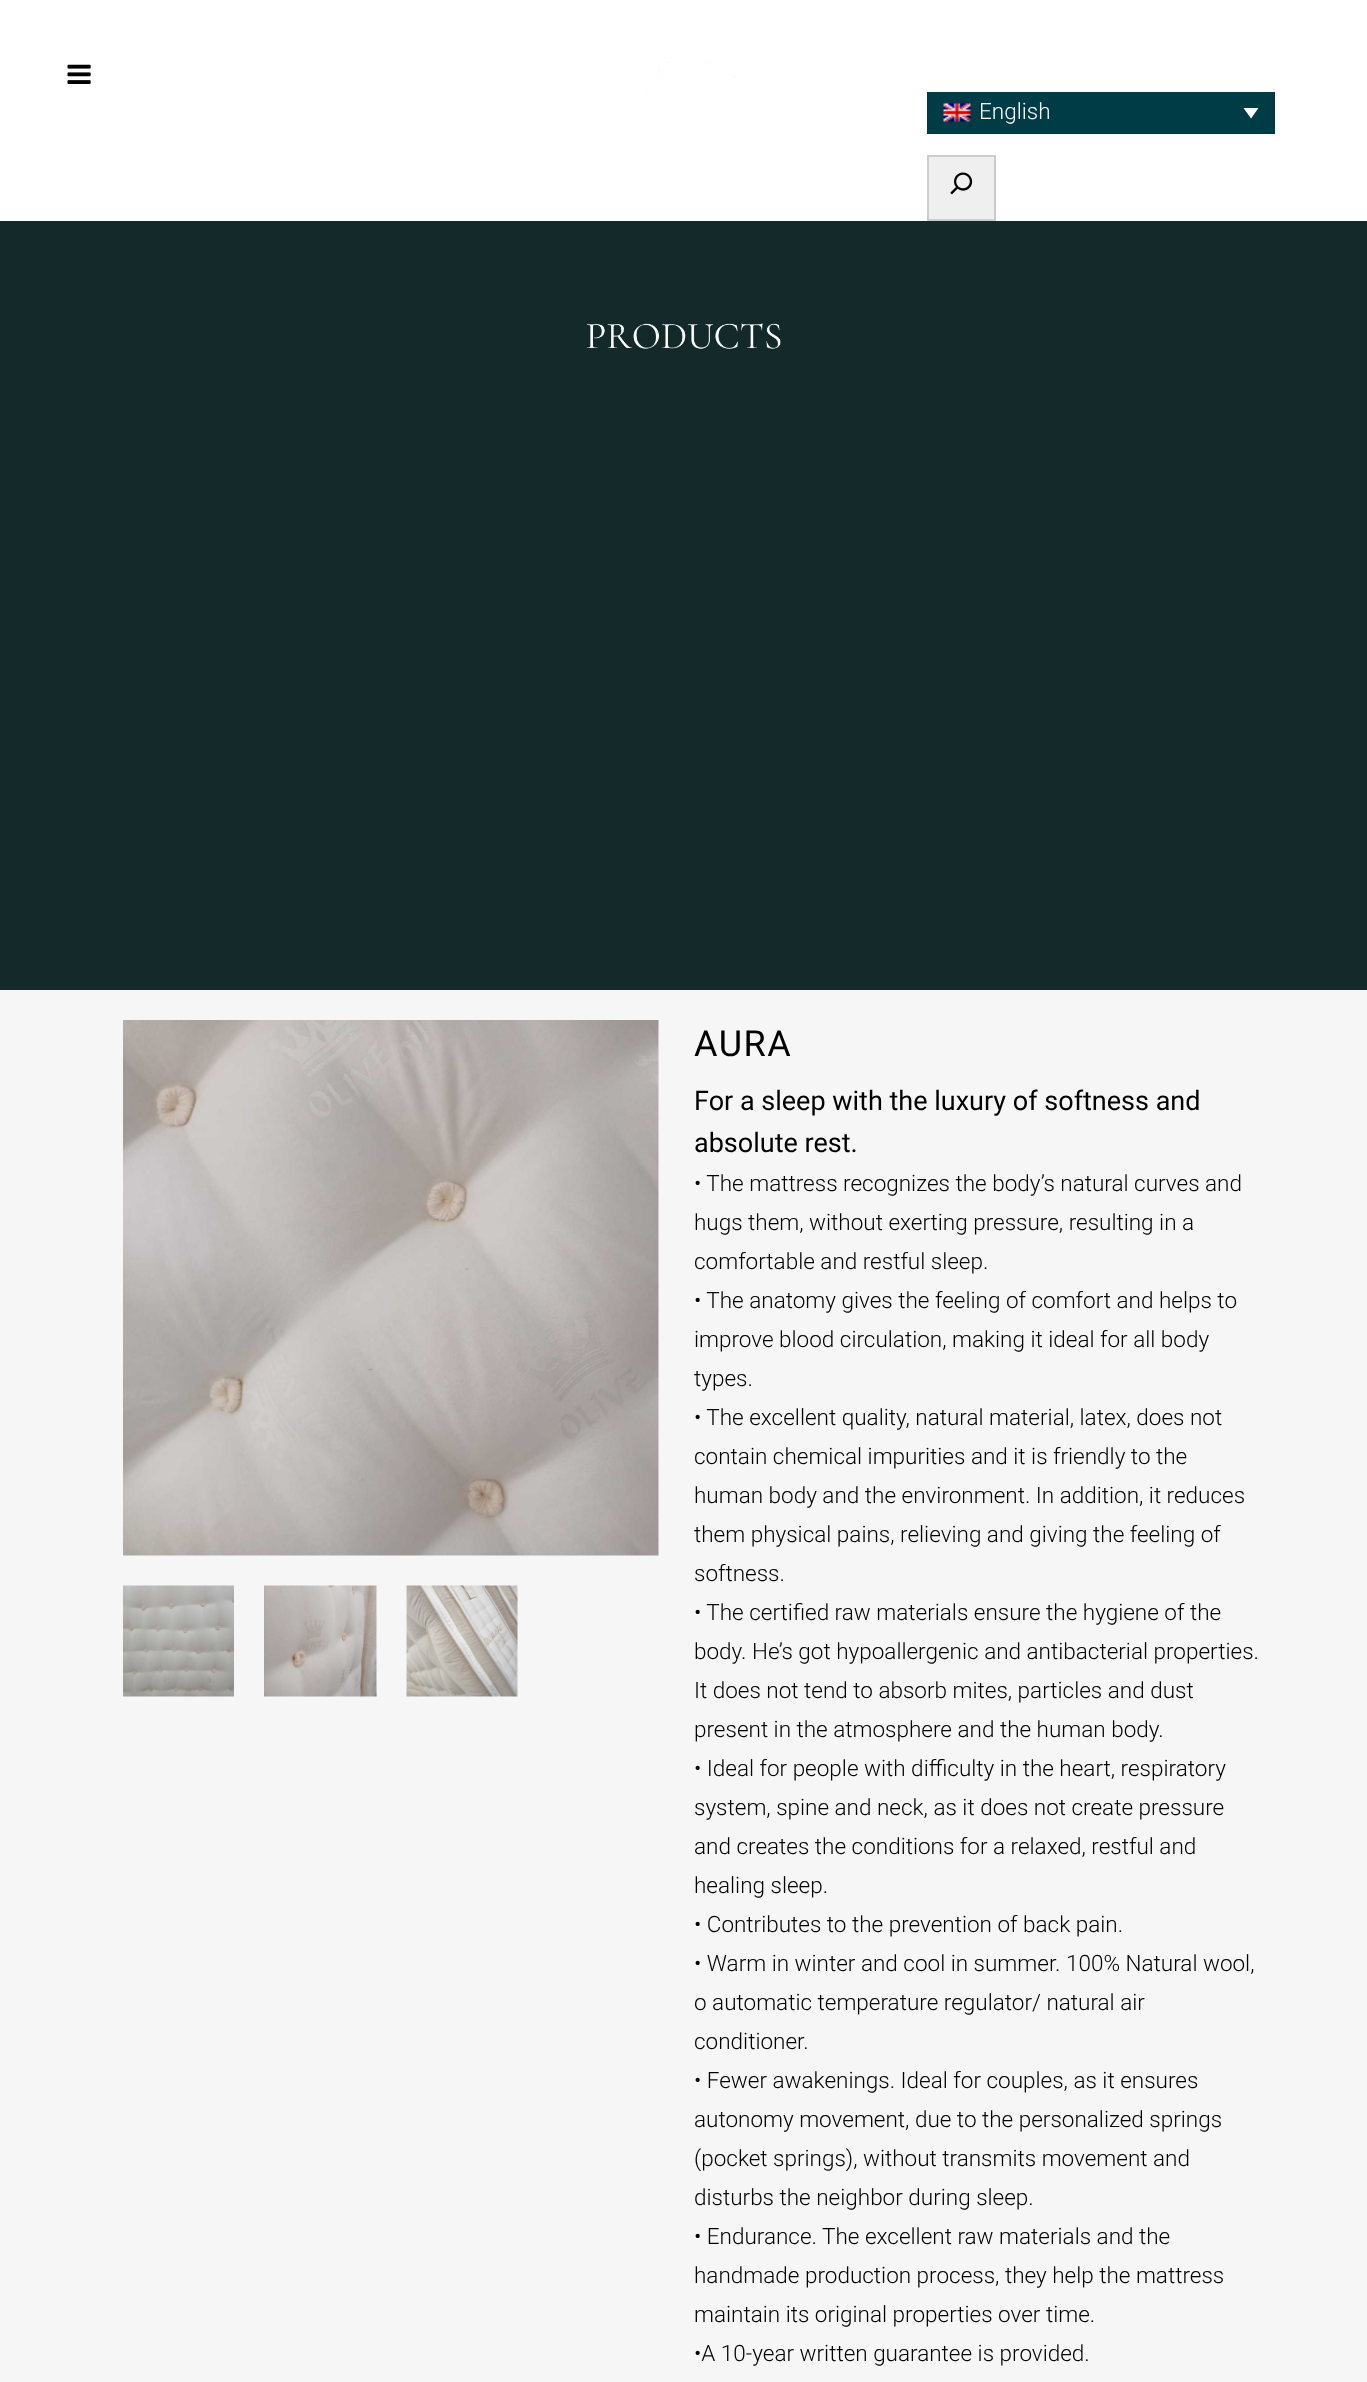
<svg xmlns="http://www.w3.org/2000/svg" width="1367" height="2382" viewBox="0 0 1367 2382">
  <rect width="100%" height="100%" fill="#f6f6f6"/>
  <rect x="0" y="0" width="1367" height="221" fill="#ffffff"/>
  <image x="67" y="64" width="24" height="20" href="img1.png"/>
  <image x="645" y="25" width="89" height="94" href="img2.png"/>
  <rect x="927" y="92" width="348" height="42" fill="#003c46"/>
  <image x="943" y="103" width="28" height="19" href="img3.png"/>
  <text x="979" y="119" font-family="Roboto" font-size="22.5" font-weight="300" fill="#ffffff">English</text>
  <path d="M1243.5 108H1258.5L1251 118.5Z" fill="#ffffff"/>
  <rect x="928" y="156" width="67" height="64" fill="#efefef" stroke="#cccccc" stroke-width="2"/>
  <image x="950" y="172" width="23" height="23" href="img4.png"/>
  <image x="0" y="221" width="1367" height="769" href="img5.png"/>
  <image x="123" y="1020" width="536" height="536" href="img6.png"/>
  <image x="123" y="1585" width="111" height="112" href="img7.png"/>
  <image x="264" y="1585" width="113" height="112" href="img8.png"/>
  <image x="406" y="1585" width="112" height="112" href="img9.png"/>
  <text x="694" y="1056" font-family="Roboto" font-size="36" letter-spacing="1.5" fill="#000000">AURA</text>
  <text x="694" y="1110" font-family="Roboto" font-size="27" fill="#000000">For a sleep with the luxury of softness and</text>
  <text x="694" y="1152" font-family="Roboto" font-size="27" fill="#000000">absolute rest.</text>
  <text x="694" y="1191" font-family="Roboto" font-size="22.5" font-weight="300" fill="#000000">• The mattress recognizes the body’s natural curves and</text>
  <text x="694" y="1230" font-family="Roboto" font-size="22.5" font-weight="300" fill="#000000">hugs them, without exerting pressure, resulting in a</text>
  <text x="694" y="1269" font-family="Roboto" font-size="22.5" font-weight="300" fill="#000000">comfortable and restful sleep.</text>
  <text x="694" y="1308" font-family="Roboto" font-size="22.5" font-weight="300" fill="#000000">• The anatomy gives the feeling of comfort and helps to</text>
  <text x="694" y="1347" font-family="Roboto" font-size="22.5" font-weight="300" fill="#000000">improve blood circulation, making it ideal for all body</text>
  <text x="694" y="1386" font-family="Roboto" font-size="22.5" font-weight="300" fill="#000000">types.</text>
  <text x="694" y="1425" font-family="Roboto" font-size="22.5" font-weight="300" fill="#000000">• The excellent quality, natural material, latex, does not</text>
  <text x="694" y="1464" font-family="Roboto" font-size="22.5" font-weight="300" fill="#000000">contain chemical impurities and it is friendly to the</text>
  <text x="694" y="1503" font-family="Roboto" font-size="22.5" font-weight="300" fill="#000000">human body and the environment. In addition, it reduces</text>
  <text x="694" y="1542" font-family="Roboto" font-size="22.5" font-weight="300" fill="#000000">them physical pains, relieving and giving the feeling of</text>
  <text x="694" y="1581" font-family="Roboto" font-size="22.5" font-weight="300" fill="#000000">softness.</text>
  <text x="694" y="1620" font-family="Roboto" font-size="22.5" font-weight="300" fill="#000000">• The certified raw materials ensure the hygiene of the</text>
  <text x="694" y="1659" font-family="Roboto" font-size="22.5" font-weight="300" fill="#000000">body. He’s got hypoallergenic and antibacterial properties.</text>
  <text x="694" y="1698" font-family="Roboto" font-size="22.5" font-weight="300" fill="#000000">It does not tend to absorb mites, particles and dust</text>
  <text x="694" y="1737" font-family="Roboto" font-size="22.5" font-weight="300" fill="#000000">present in the atmosphere and the human body.</text>
  <text x="694" y="1776" font-family="Roboto" font-size="22.5" font-weight="300" fill="#000000">• Ideal for people with difficulty in the heart, respiratory</text>
  <text x="694" y="1815" font-family="Roboto" font-size="22.5" font-weight="300" fill="#000000">system, spine and neck, as it does not create pressure</text>
  <text x="694" y="1854" font-family="Roboto" font-size="22.5" font-weight="300" fill="#000000">and creates the conditions for a relaxed, restful and</text>
  <text x="694" y="1893" font-family="Roboto" font-size="22.5" font-weight="300" fill="#000000">healing sleep.</text>
  <text x="694" y="1932" font-family="Roboto" font-size="22.5" font-weight="300" fill="#000000">• Contributes to the prevention of back pain.</text>
  <text x="694" y="1971" font-family="Roboto" font-size="22.5" font-weight="300" fill="#000000">• Warm in winter and cool in summer. 100% Natural wool,</text>
  <text x="694" y="2010" font-family="Roboto" font-size="22.5" font-weight="300" fill="#000000">o automatic temperature regulator/ natural air</text>
  <text x="694" y="2049" font-family="Roboto" font-size="22.5" font-weight="300" fill="#000000">conditioner.</text>
  <text x="694" y="2088" font-family="Roboto" font-size="22.5" font-weight="300" fill="#000000">• Fewer awakenings. Ideal for couples, as it ensures</text>
  <text x="694" y="2127" font-family="Roboto" font-size="22.5" font-weight="300" fill="#000000">autonomy movement, due to the personalized springs</text>
  <text x="694" y="2166" font-family="Roboto" font-size="22.5" font-weight="300" fill="#000000">(pocket springs), without transmits movement and</text>
  <text x="694" y="2205" font-family="Roboto" font-size="22.5" font-weight="300" fill="#000000">disturbs the neighbor during sleep.</text>
  <text x="694" y="2244" font-family="Roboto" font-size="22.5" font-weight="300" fill="#000000">• Endurance. The excellent raw materials and the</text>
  <text x="694" y="2283" font-family="Roboto" font-size="22.5" font-weight="300" fill="#000000">handmade production process, they help the mattress</text>
  <text x="694" y="2322" font-family="Roboto" font-size="22.5" font-weight="300" fill="#000000">maintain its original properties over time.</text>
  <text x="694" y="2361" font-family="Roboto" font-size="22.5" font-weight="300" fill="#000000">•A 10-year written guarantee is provided.</text>
</svg>
